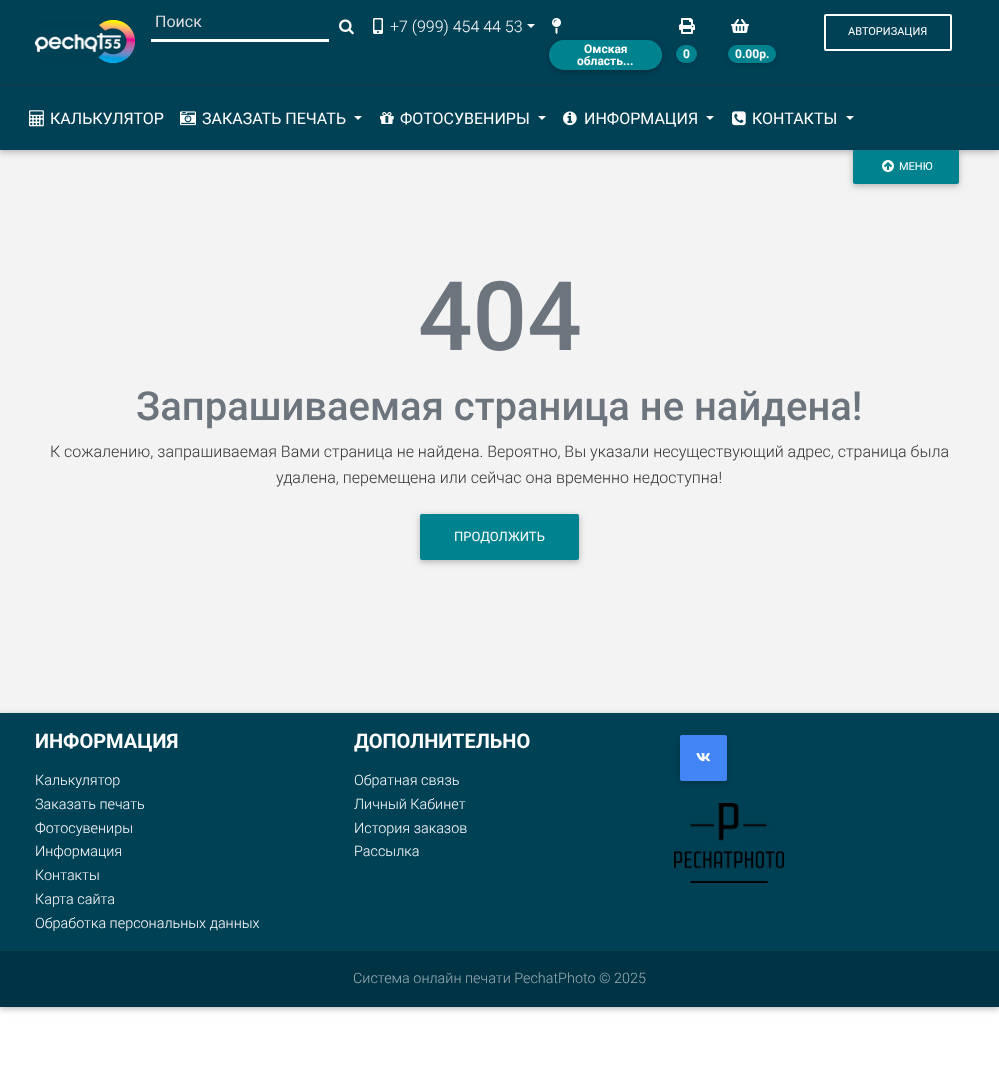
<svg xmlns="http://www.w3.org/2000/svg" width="999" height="1079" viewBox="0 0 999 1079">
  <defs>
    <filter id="blur1" x="-50%" y="-200%" width="200%" height="500%"><feGaussianBlur stdDeviation="5"/></filter>
    <filter id="blur2" x="-50%" y="-200%" width="200%" height="500%"><feGaussianBlur stdDeviation="2.5"/></filter>
  </defs>
  <rect width="100%" height="100%" fill="#ffffff"/>
  <rect x="0" y="150" width="999" height="563" fill="#f3f3f4"/>
  <rect x="0" y="2" width="999" height="150" fill="#000000" fill-opacity="0.12" filter="url(#blur1)"/>
  <rect x="0" y="2" width="999" height="150" fill="#000000" fill-opacity="0.16" filter="url(#blur2)"/>
  <rect x="0" y="0" width="999" height="150" fill="#004156"/>
  <image x="35" y="20" width="100" height="43" href="img1.png"/>
  <rect x="151" y="39" width="178" height="3" fill="#ffffff"/>
  <text x="155" y="27" font-family="Roboto" font-size="16" fill="#dddddd">Поиск</text>
  <image x="339" y="19" width="15" height="16" href="img2.png"/>
  <image x="373" y="18" width="10" height="16" href="img3.png"/>
  <text x="390" y="32" font-family="Roboto" font-size="16" font-weight="300" fill="#ffffff">+7 (999) 454 44 53</text>
  <path d="M527 24H535L531 28Z" fill="#ffffff"/>
  <rect x="825" y="15" width="126" height="35" rx="1" fill="none" stroke="#ffffff" stroke-width="2"/>
  <text x="848" y="35" font-family="Roboto" font-size="11" fill="#ffffff">АВТОРИЗАЦИЯ</text>
  <image x="552" y="18" width="9" height="16" href="img4.png"/>
  <rect x="549" y="42" width="113" height="30" rx="15" fill="#000000" fill-opacity="0.12" filter="url(#blur1)"/>
  <rect x="549" y="42" width="113" height="30" rx="15" fill="#000000" fill-opacity="0.16" filter="url(#blur2)"/>
  <rect x="549" y="40" width="113" height="30" rx="15" fill="#00838f"/>
  <text x="584" y="53" font-family="Roboto" font-size="12" font-weight="bold" fill="#ffffff">Омская</text>
  <text x="577" y="65" font-family="Roboto" font-size="12" font-weight="bold" fill="#ffffff">область...</text>
  <image x="679" y="18" width="16" height="16" href="img5.png"/>
  <rect x="676" y="47" width="21" height="18" rx="9" fill="#000000" fill-opacity="0.16" filter="url(#blur2)"/>
  <rect x="676" y="45" width="21" height="18" rx="9" fill="#00838f"/>
  <text x="683" y="58" font-family="Roboto" font-size="12" font-weight="bold" fill="#ffffff">0</text>
  <image x="731" y="19" width="18" height="14" href="img6.png"/>
  <rect x="728" y="47" width="48" height="18" rx="9" fill="#000000" fill-opacity="0.16" filter="url(#blur2)"/>
  <rect x="728" y="45" width="48" height="18" rx="9" fill="#00838f"/>
  <text x="735" y="58" font-family="Roboto" font-size="12" font-weight="bold" fill="#ffffff">0.00р.</text>
  <rect x="0" y="84" width="999" height="2" fill="#0d3e4d"/>
  <image x="29" y="110" width="15" height="17" href="img7.png"/>
  <text x="50" y="124" font-family="Roboto" font-size="16" fill="#ffffff">КАЛЬКУЛЯТОР</text>
  <image x="180" y="111" width="16" height="15" href="img8.png"/>
  <text x="202" y="124" font-family="Roboto" font-size="16" fill="#ffffff">ЗАКАЗАТЬ ПЕЧАТЬ</text>
  <path d="M354 116H362L358 120Z" fill="#ffffff"/>
  <image x="380" y="112" width="14" height="12" href="img9.png"/>
  <text x="400" y="124" font-family="Roboto" font-size="16" fill="#ffffff">ФОТОСУВЕНИРЫ</text>
  <path d="M538 116H546L542 120Z" fill="#ffffff"/>
  <image x="563" y="111" width="14" height="15" href="img10.png"/>
  <text x="584" y="124" font-family="Roboto" font-size="16" fill="#ffffff">ИНФОРМАЦИЯ</text>
  <path d="M706 116H714L710 120Z" fill="#ffffff"/>
  <image x="732" y="111" width="14" height="15" href="img11.png"/>
  <text x="752" y="124" font-family="Roboto" font-size="16" fill="#ffffff">КОНТАКТЫ</text>
  <path d="M846 116H854L850 120Z" fill="#ffffff"/>
  <rect x="853" y="152" width="106" height="34" rx="2" fill="#000000" fill-opacity="0.12" filter="url(#blur1)"/>
  <rect x="853" y="152" width="106" height="34" rx="2" fill="#000000" fill-opacity="0.16" filter="url(#blur2)"/>
  <path d="M853 150H959V182C959 183 958 184 957 184H855C854 184 853 183 853 182Z" fill="#00838f"/>
  <image x="882" y="160" width="12" height="12" href="img12.png"/>
  <text x="899" y="170" font-family="Roboto" font-size="11" fill="#ffffff">МЕНЮ</text>
  <text x="418" y="350" font-family="Roboto" font-size="96" font-weight="500" fill="#6c757d">404</text>
  <text x="136" y="420" font-family="Roboto" font-size="40" font-weight="500" fill="#6c757d">Запрашиваемая страница не найдена!</text>
  <text x="50" y="457" font-family="Roboto" font-size="16" font-weight="300" fill="#333333">К сожалению, запрашиваемая Вами страница не найдена. Вероятно, Вы указали несуществующий адрес, страница была</text>
  <text x="276" y="483" font-family="Roboto" font-size="16" font-weight="300" fill="#333333">удалена, перемещена или сейчас она временно недоступна!</text>
  <rect x="420" y="516" width="159" height="46" rx="2" fill="#000000" fill-opacity="0.12" filter="url(#blur1)"/>
  <rect x="420" y="516" width="159" height="46" rx="2" fill="#000000" fill-opacity="0.16" filter="url(#blur2)"/>
  <rect x="420" y="514" width="159" height="46" rx="2" fill="#00838f"/>
  <text x="454" y="541" font-family="Roboto" font-size="13" fill="#ffffff">ПРОДОЛЖИТЬ</text>
  <rect x="0" y="715" width="999" height="294" fill="#000000" fill-opacity="0.12" filter="url(#blur1)"/>
  <rect x="0" y="715" width="999" height="294" fill="#000000" fill-opacity="0.16" filter="url(#blur2)"/>
  <rect x="0" y="713" width="999" height="238" fill="#004156"/>
  <text x="35" y="748" font-family="Roboto" font-size="20" font-weight="bold" fill="#ffffff">ИНФОРМАЦИЯ</text>
  <text x="35" y="785" font-family="Roboto" font-size="14.4" font-weight="300" fill="#ffffff">Калькулятор</text>
  <text x="35" y="809" font-family="Roboto" font-size="14.4" font-weight="300" fill="#ffffff">Заказать печать</text>
  <text x="35" y="833" font-family="Roboto" font-size="14.4" font-weight="300" fill="#ffffff">Фотосувениры</text>
  <text x="35" y="856" font-family="Roboto" font-size="14.4" font-weight="300" fill="#ffffff">Информация</text>
  <text x="35" y="880" font-family="Roboto" font-size="14.4" font-weight="300" fill="#ffffff">Контакты</text>
  <text x="35" y="904" font-family="Roboto" font-size="14.4" font-weight="300" fill="#ffffff">Карта сайта</text>
  <text x="35" y="928" font-family="Roboto" font-size="14.4" font-weight="300" fill="#ffffff">Обработка персональных данных</text>
  <text x="354" y="748" font-family="Roboto" font-size="20" font-weight="bold" fill="#ffffff">ДОПОЛНИТЕЛЬНО</text>
  <text x="354" y="785" font-family="Roboto" font-size="14.4" font-weight="300" fill="#ffffff">Обратная связь</text>
  <text x="354" y="809" font-family="Roboto" font-size="14.4" font-weight="300" fill="#ffffff">Личный Кабинет</text>
  <text x="354" y="833" font-family="Roboto" font-size="14.4" font-weight="300" fill="#ffffff">История заказов</text>
  <text x="354" y="856" font-family="Roboto" font-size="14.4" font-weight="300" fill="#ffffff">Рассылка</text>
  <rect x="680" y="737" width="47" height="46" rx="2" fill="#000000" fill-opacity="0.12" filter="url(#blur1)"/>
  <rect x="680" y="737" width="47" height="46" rx="2" fill="#000000" fill-opacity="0.16" filter="url(#blur2)"/>
  <rect x="680" y="735" width="47" height="46" rx="2" fill="#4285f4"/>
  <image x="696" y="753" width="15" height="9" href="img13.png"/>
  <image x="674" y="803" width="110" height="80" href="img14.png"/>
  <rect x="0" y="951" width="999" height="56" fill="#003445"/>
  <text x="353" y="983" font-family="Roboto" font-size="14.4" font-weight="300" fill="#99aeb5">Система онлайн печати PechatPhoto © 2025</text>
</svg>
